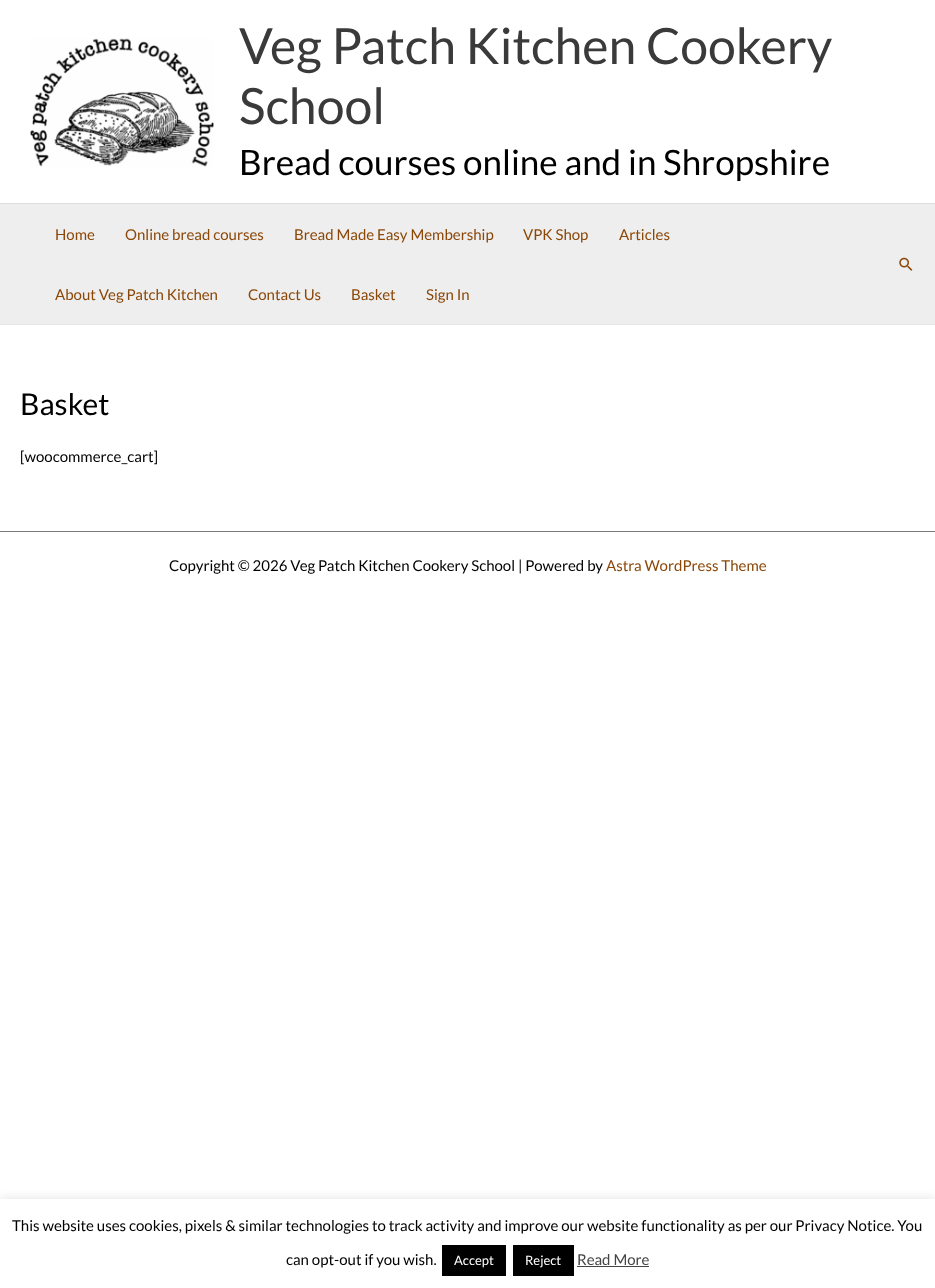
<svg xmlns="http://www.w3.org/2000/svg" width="935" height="1288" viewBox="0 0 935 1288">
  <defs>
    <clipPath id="clip1"><rect x="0" y="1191" width="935" height="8"/></clipPath>
    <filter id="blur1" x="-50%" y="-200%" width="200%" height="500%"><feGaussianBlur stdDeviation="5"/></filter>
  </defs>
  <rect width="100%" height="100%" fill="#ffffff"/>
  <rect x="0" y="203" width="935" height="1" fill="#dddddd"/>
  <image x="30" y="38" width="184" height="129" href="img1.png"/>
  <text x="239" y="64" font-family="Lato" font-size="50" fill="#3a3a3a">Veg Patch Kitchen Cookery</text>
  <text x="239" y="124" font-family="Lato" font-size="50" fill="#3a3a3a">School</text>
  <text x="239" y="175" font-family="Lato" font-size="35" fill="#000000">Bread courses online and in Shropshire</text>
  <rect x="0" y="204" width="935" height="120" fill="#eeeeee"/>
  <rect x="0" y="324" width="935" height="1" fill="#e5e5e5"/>
  <text x="55" y="240" font-family="Lato" font-size="15" fill="#8b4707">Home</text>
  <text x="125" y="240" font-family="Lato" font-size="15" fill="#8b4707">Online bread courses</text>
  <text x="294" y="240" font-family="Lato" font-size="15" fill="#8b4707">Bread Made Easy Membership</text>
  <text x="523" y="240" font-family="Lato" font-size="15" fill="#8b4707">VPK Shop</text>
  <text x="619" y="240" font-family="Lato" font-size="15" fill="#8b4707">Articles</text>
  <text x="55" y="300" font-family="Lato" font-size="15" fill="#8b4707">About Veg Patch Kitchen</text>
  <text x="248" y="300" font-family="Lato" font-size="15" fill="#8b4707">Contact Us</text>
  <text x="351" y="300" font-family="Lato" font-size="15" fill="#8b4707">Basket</text>
  <text x="426" y="300" font-family="Lato" font-size="15" fill="#8b4707">Sign In</text>
  <image x="899" y="257" width="14" height="14" href="img2.png"/>
  <text x="20" y="415" font-family="Lato" font-size="30" fill="#000000">Basket</text>
  <text x="20" y="462" font-family="Lato" font-size="15" fill="#000000">[woocommerce_cart]</text>
  <rect x="0" y="531" width="935" height="1" fill="#7a7a7a"/>
  <text x="169" y="571" font-family="Lato" font-size="15" fill="#000000">Copyright © 2026 Veg Patch Kitchen Cookery School | Powered by</text>
  <text x="606" y="571" font-family="Lato" font-size="15" fill="#8b4707">Astra WordPress Theme</text>
  <g clip-path="url(#clip1)">
    <rect x="0" y="1198" width="935" height="89" fill="#acabab" fill-opacity="0.3" filter="url(#blur1)"/>
  </g>
  <text x="12" y="1231" font-family="Lato" font-size="15" fill="#000000">This website uses cookies, pixels &amp; similar technologies to track activity and improve our website functionality as per our Privacy Notice. You</text>
  <text x="286" y="1265" font-family="Lato" font-size="15" fill="#000000">can opt-out if you wish.</text>
  <rect x="442" y="1245" width="64" height="31" fill="#000000"/>
  <text x="454" y="1265" font-family="Lato" font-size="13" fill="#ffffff">Accept</text>
  <rect x="513" y="1245" width="61" height="31" fill="#000000"/>
  <text x="525" y="1265" font-family="Lato" font-size="13" fill="#ffffff">Reject</text>
  <text x="577" y="1265" font-family="Lato" font-size="15" fill="#444444">Read More</text>
  <rect x="577" y="1266" width="72" height="1" fill="#444444"/>
</svg>
